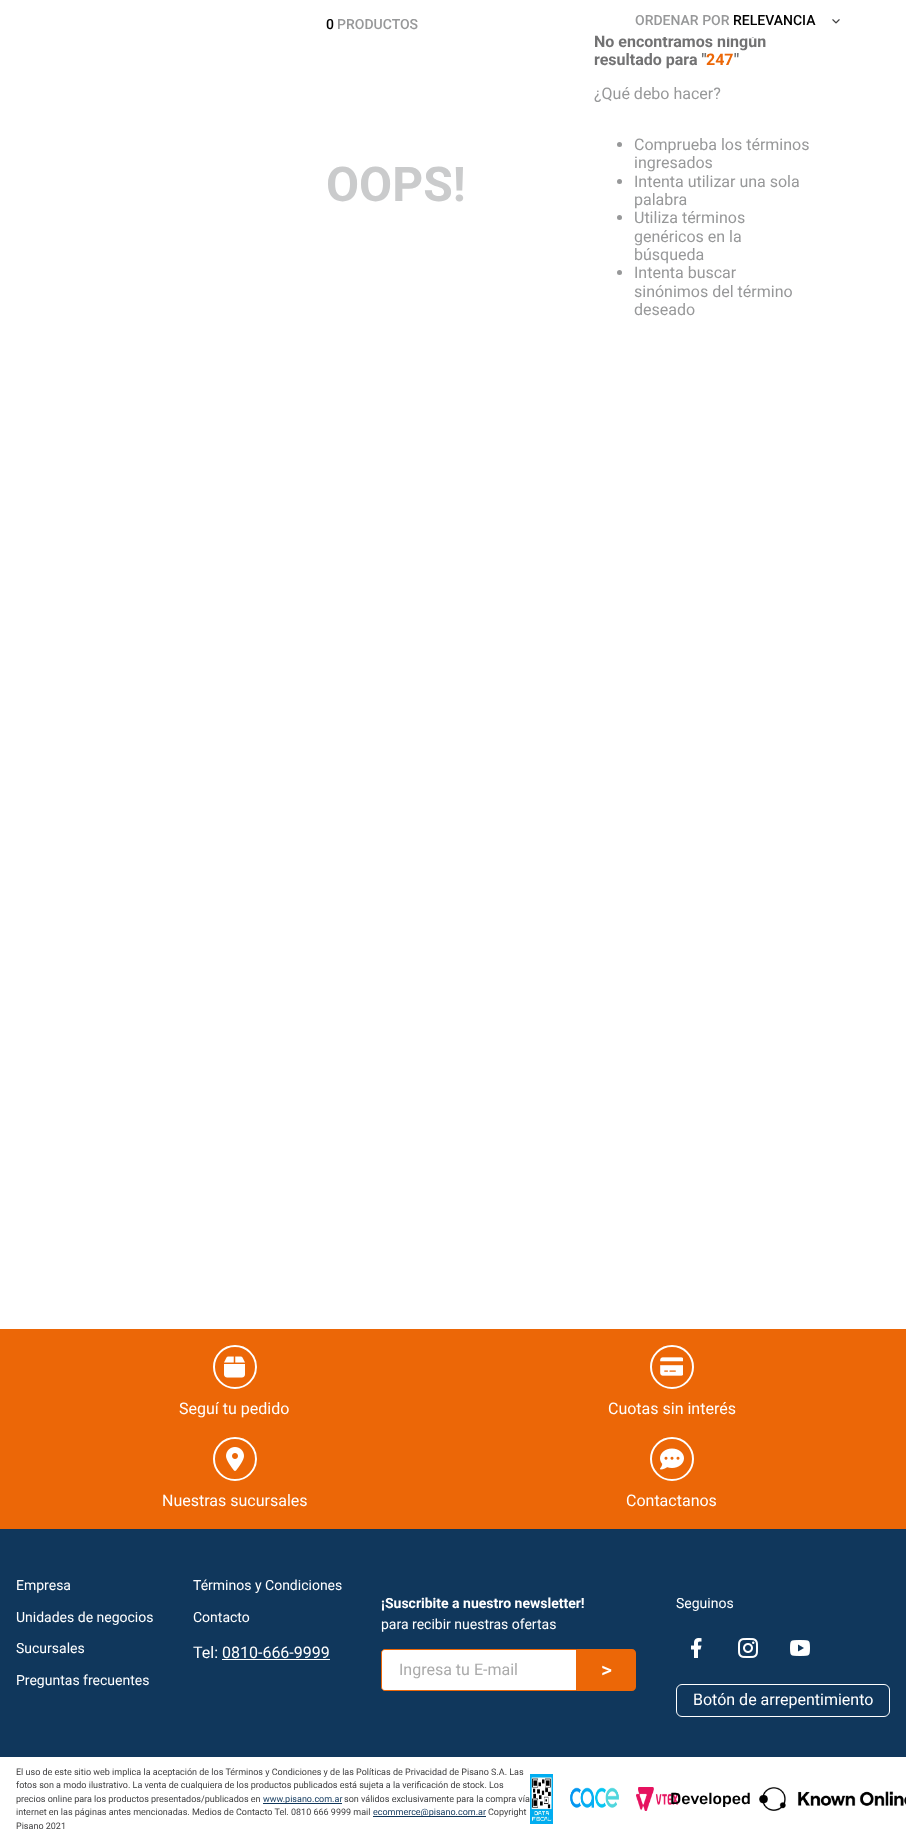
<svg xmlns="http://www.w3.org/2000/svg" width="906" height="1842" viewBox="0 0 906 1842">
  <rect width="100%" height="100%" fill="#ffffff"/>
  <text x="326" y="29" font-family="Roboto" font-size="14" font-weight="500" fill="#000000">0</text>
  <text x="337" y="29" font-family="Roboto" font-size="14" font-weight="500" fill="#979899">PRODUCTOS</text>
  <text x="594" y="47" font-family="Roboto" font-size="16" font-weight="bold" fill="#727273">No encontramos ningún</text>
  <path d="M638 2H854C856 2 858 4 858 6V37H634V6C634 4 636 2 638 2Z" fill="#ffffff"/>
  <text x="635" y="25" font-family="Roboto" font-size="14" font-weight="500" fill="#979899">ORDENAR POR</text>
  <text x="733" y="25" font-family="Roboto" font-size="14" font-weight="500" fill="#000000">RELEVANCIA</text>
  <image x="832" y="19" width="8" height="5" href="img1.png"/>
  <text x="326" y="201" font-family="Roboto" font-size="48" font-weight="bold" fill="#cacbcc">OOPS!</text>
  <text x="594" y="65" font-family="Roboto" font-size="16" font-weight="bold" fill="#727273">resultado para "</text>
  <text x="706" y="65" font-family="Roboto" font-size="16" font-weight="bold" fill="#ec6707">247</text>
  <text x="734" y="65" font-family="Roboto" font-size="16" font-weight="bold" fill="#727273">"</text>
  <text x="594" y="99" font-family="Roboto" font-size="16" fill="#979899">¿Qué debo hacer?</text>
  <circle cx="619.5" cy="144.5" r="2.5" fill="#979899"/>
  <text x="634" y="150" font-family="Roboto" font-size="16" fill="#979899">Comprueba los términos</text>
  <text x="634" y="168" font-family="Roboto" font-size="16" fill="#979899">ingresados</text>
  <circle cx="619.5" cy="181.5" r="2.5" fill="#979899"/>
  <text x="634" y="187" font-family="Roboto" font-size="16" fill="#979899">Intenta utilizar una sola</text>
  <text x="634" y="205" font-family="Roboto" font-size="16" fill="#979899">palabra</text>
  <circle cx="619.5" cy="217.5" r="2.5" fill="#979899"/>
  <text x="634" y="223" font-family="Roboto" font-size="16" fill="#979899">Utiliza términos</text>
  <text x="634" y="242" font-family="Roboto" font-size="16" fill="#979899">genéricos en la</text>
  <text x="634" y="260" font-family="Roboto" font-size="16" fill="#979899">búsqueda</text>
  <circle cx="619.5" cy="272.5" r="2.5" fill="#979899"/>
  <text x="634" y="278" font-family="Roboto" font-size="16" fill="#979899">Intenta buscar</text>
  <text x="634" y="297" font-family="Roboto" font-size="16" fill="#979899">sinónimos del término</text>
  <text x="634" y="315" font-family="Roboto" font-size="16" fill="#979899">deseado</text>
  <rect x="0" y="1329" width="906" height="200" fill="#ec6707"/>
  <circle cx="235" cy="1367" r="21" fill="none" stroke="#ffffff" stroke-width="2"/>
  <image x="224" y="1356" width="21" height="22" href="img2.png"/>
  <text x="179" y="1414" font-family="Roboto" font-size="16" fill="#ffffff">Seguí tu pedido</text>
  <circle cx="672" cy="1367" r="21" fill="none" stroke="#ffffff" stroke-width="2"/>
  <image x="660" y="1357" width="23" height="19" href="img3.png"/>
  <text x="608" y="1414" font-family="Roboto" font-size="16" fill="#ffffff">Cuotas sin interés</text>
  <circle cx="235" cy="1459" r="21" fill="none" stroke="#ffffff" stroke-width="2"/>
  <image x="226" y="1447" width="18" height="24" href="img4.png"/>
  <text x="162" y="1506" font-family="Roboto" font-size="16" fill="#ffffff">Nuestras sucursales</text>
  <circle cx="672" cy="1459" r="21" fill="none" stroke="#ffffff" stroke-width="2"/>
  <image x="660" y="1448" width="24" height="22" href="img5.png"/>
  <text x="626" y="1506" font-family="Roboto" font-size="16" fill="#ffffff">Contactanos</text>
  <rect x="0" y="1529" width="906" height="228" fill="#10375c"/>
  <text x="16" y="1590" font-family="Roboto" font-size="14" fill="#ffffff">Empresa</text>
  <text x="16" y="1622" font-family="Roboto" font-size="14" fill="#ffffff">Unidades de negocios</text>
  <text x="16" y="1653" font-family="Roboto" font-size="14" fill="#ffffff">Sucursales</text>
  <text x="16" y="1685" font-family="Roboto" font-size="14" fill="#ffffff">Preguntas frecuentes</text>
  <text x="193" y="1590" font-family="Roboto" font-size="14" fill="#ffffff">Términos y Condiciones</text>
  <text x="193" y="1622" font-family="Roboto" font-size="14" fill="#ffffff">Contacto</text>
  <text x="193" y="1658" font-family="Roboto" font-size="16" fill="#ffffff">Tel: 0810-666-9999</text>
  <rect x="222" y="1659" width="108" height="1" fill="#ffffff"/>
  <text x="381" y="1608" font-family="Roboto" font-size="14" font-weight="bold" fill="#ffffff">¡Suscribite a nuestro newsletter!</text>
  <text x="381" y="1629" font-family="Roboto" font-size="14" fill="#ffffff">para recibir nuestras ofertas</text>
  <path d="M385 1649.5H576.5V1690.5H385C383 1690.5 381.5 1689 381.5 1687V1653C381.5 1651 383 1649.5 385 1649.5Z" fill="#ffffff" stroke="#ec6707"/>
  <path d="M386 1650.5H575.5V1689.5H386C384 1689.5 382.5 1688 382.5 1686V1654C382.5 1652 384 1650.5 386 1650.5Z" fill="none" stroke="#ffffff"/>
  <text x="399" y="1675" font-family="Roboto" font-size="16" fill="#aaaaaa">Ingresa tu E-mail</text>
  <path d="M577 1649H632C634 1649 636 1651 636 1653V1687C636 1689 634 1691 632 1691H577Z" fill="#ec6707"/>
  <text x="601" y="1677" font-family="Roboto" font-size="21" font-weight="500" fill="#ffffff">&gt;</text>
  <text x="676" y="1608" font-family="Roboto" font-size="14" fill="#ffffff">Seguinos</text>
  <image x="691" y="1638" width="11" height="20" href="img6.png"/>
  <image x="738" y="1638" width="20" height="20" href="img7.png"/>
  <image x="790" y="1640" width="20" height="16" href="img8.png"/>
  <rect x="676.5" y="1684.5" width="213" height="32" rx="5.5" fill="none" stroke="#ffffff"/>
  <text x="693" y="1705" font-family="Roboto" font-size="16" fill="#ffffff">Botón de arrepentimiento</text>
  <text x="16" y="1775" font-family="Roboto" font-size="9" fill="#3f3f40">El uso de este sitio web implica la aceptación de los Términos y Condiciones y de las Políticas de Privacidad de Pisano S.A. Las</text>
  <text x="16" y="1788" font-family="Roboto" font-size="9" fill="#3f3f40">fotos son a modo ilustrativo. La venta de cualquiera de los productos publicados está sujeta a la verificación de stock. Los</text>
  <text x="16" y="1802" font-family="Roboto" font-size="9" fill="#3f3f40">precios online para los productos presentados/publicados en</text>
  <rect x="263" y="1803" width="79" height="1" fill="#10375c"/>
  <text x="263" y="1802" font-family="Roboto" font-size="9" fill="#10375c">www.pisano.com.ar</text>
  <text x="344" y="1802" font-family="Roboto" font-size="9" fill="#3f3f40">son válidos exclusivamente para la compra vía</text>
  <text x="16" y="1815" font-family="Roboto" font-size="9" fill="#3f3f40">internet en las páginas antes mencionadas. Medios de Contacto Tel. 0810 666 9999 mail</text>
  <rect x="373" y="1816" width="113" height="1" fill="#10375c"/>
  <text x="373" y="1815" font-family="Roboto" font-size="9" fill="#10375c">ecommerce@pisano.com.ar</text>
  <text x="488" y="1815" font-family="Roboto" font-size="9" fill="#3f3f40">Copyright</text>
  <text x="16" y="1829" font-family="Roboto" font-size="9" fill="#3f3f40">Pisano 2021</text>
  <image x="530" y="1774" width="23" height="50" href="img9.png"/>
  <image x="570" y="1787" width="49" height="21" href="img10.png"/>
  <image x="636" y="1787" width="42" height="24" href="img11.png"/>
  <text x="670" y="1804" font-family="Rubik" font-size="16" font-weight="500" fill="#000000">Developed</text>
  <image x="759" y="1787" width="147" height="24" href="img12.png"/>
</svg>
